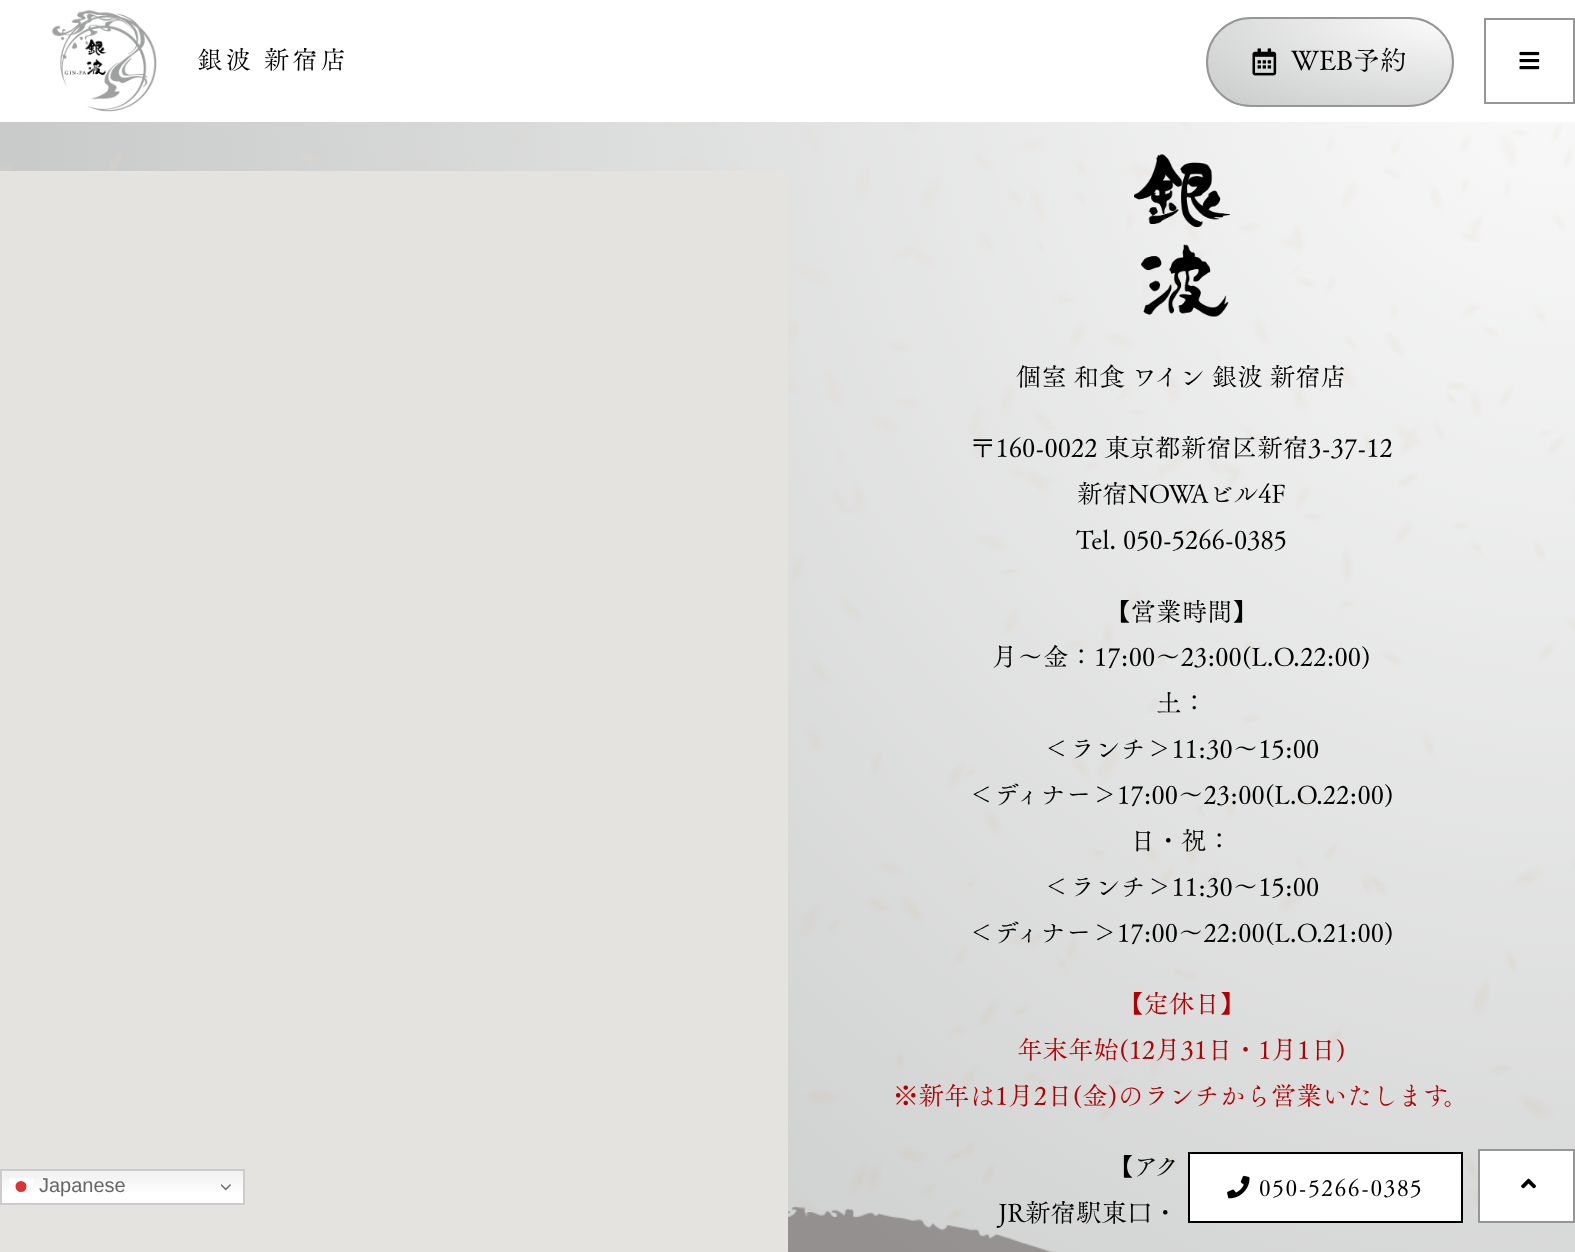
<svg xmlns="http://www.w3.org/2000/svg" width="1575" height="1252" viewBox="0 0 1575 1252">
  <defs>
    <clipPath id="clip1"><rect x="1206" y="17" width="248" height="90" rx="45"/></clipPath>
    <radialGradient id="g1" gradientUnits="userSpaceOnUse" cx="0" cy="0" r="1" gradientTransform="matrix(346 0 0 123 1452 18)"><stop offset="0" stop-color="#fcfcfc"/><stop offset="1" stop-color="#c9caca"/></radialGradient>
    <radialGradient id="g2" gradientUnits="userSpaceOnUse" cx="0" cy="0" r="1" gradientTransform="matrix(2227 0 0 2573 1575 -27)"><stop offset="0" stop-color="#fcfcfc"/><stop offset="0.7" stop-color="#c9caca"/></radialGradient>
    <linearGradient id="g3" gradientUnits="userSpaceOnUse" x1="122" y1="1169" x2="122" y2="1205"><stop offset="0" stop-color="#efefef"/><stop offset="0.7" stop-color="#ffffff"/></linearGradient>
  </defs>
  <rect width="100%" height="100%" fill="#ffffff"/>
  <image x="51" y="9" width="106" height="103" href="img1.png"/>
  <text x="197" y="69" font-family="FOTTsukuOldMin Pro" font-size="25.5" letter-spacing="3" fill="#000000">銀波 新宿店</text>
  <g clip-path="url(#clip1)">
    <rect x="1208" y="18" width="244" height="87" fill="url(#g1)"/>
  </g>
  <rect x="1207" y="18" width="246" height="88" rx="44" fill="none" stroke="#969696" stroke-width="2"/>
  <image x="1252" y="48" width="25" height="28" href="img2.png"/>
  <text x="1291" y="70" font-family="FOTTsukuOldMin Pro" font-size="27" fill="#000000">WEB予約</text>
  <rect x="1485" y="19" width="89" height="84" fill="none" stroke="#969696" stroke-width="2"/>
  <image x="1519" y="51" width="21" height="19" href="img3.png"/>
  <rect x="0" y="122" width="1575" height="1130" fill="url(#g2)"/>
  <image x="0" y="122" width="1575" height="1130" href="img4.png"/>
  <rect x="0" y="171" width="788" height="1081" fill="#e5e3df"/>
  <image x="1134" y="154" width="96" height="163" href="img5.png"/>
  <rect x="2" y="1171" width="241" height="32" fill="url(#g3)"/>
  <rect x="1" y="1170" width="243" height="34" fill="none" stroke="#cccccc" stroke-width="2"/>
  <rect x="9" y="1178" width="24" height="11" fill="#ffffff" fill-opacity="0.8"/>
  <text x="39" y="1192" font-family="Liberation Sans" font-size="20" fill="#666666">Japanese</text>
  <circle cx="21" cy="1186.5" r="5.5" fill="#dc3333"/>
  <image x="221" y="1184" width="10" height="7" href="img6.png"/>
  <text x="1016" y="386" font-family="FOTTsukuOldMin Pro" font-size="25.5" fill="#000000">個室 和食 ワイン 銀波 新宿店</text>
  <text x="970" y="457" font-family="FOTTsukuOldMin Pro" font-size="25.5" fill="#000000">〒160-0022 東京都新宿区新宿3-37-12</text>
  <text x="1077" y="503" font-family="FOTTsukuOldMin Pro" font-size="25.5" fill="#000000">新宿NOWAビル4F</text>
  <text x="1076" y="549" font-family="FOTTsukuOldMin Pro" font-size="25.5" fill="#000000">Tel. 050-5266-0385</text>
  <text x="1105" y="621" font-family="FOTTsukuOldMin Pro" font-size="25.5" fill="#000000">【営業時間】</text>
  <text x="992" y="666" font-family="FOTTsukuOldMin Pro" font-size="25.5" fill="#000000">月～金：17:00～23:00(L.O.22:00)</text>
  <text x="1156" y="712" font-family="FOTTsukuOldMin Pro" font-size="25.5" fill="#000000">土：</text>
  <text x="1044" y="758" font-family="FOTTsukuOldMin Pro" font-size="25.5" fill="#000000">＜ランチ＞11:30～15:00</text>
  <text x="969" y="804" font-family="FOTTsukuOldMin Pro" font-size="25.5" fill="#000000">＜ディナー＞17:00～23:00(L.O.22:00)</text>
  <text x="1130" y="850" font-family="FOTTsukuOldMin Pro" font-size="25.5" fill="#000000">日・祝：</text>
  <text x="1044" y="896" font-family="FOTTsukuOldMin Pro" font-size="25.5" fill="#000000">＜ランチ＞11:30～15:00</text>
  <text x="969" y="942" font-family="FOTTsukuOldMin Pro" font-size="25.5" fill="#000000">＜ディナー＞17:00～22:00(L.O.21:00)</text>
  <text x="1118" y="1013" font-family="FOTTsukuOldMin Pro" font-size="25.5" fill="#b00001">【定休日】</text>
  <text x="1017" y="1059" font-family="FOTTsukuOldMin Pro" font-size="25.5" fill="#b00001">年末年始(12月31日・1月1日)</text>
  <text x="893" y="1105" font-family="FOTTsukuOldMin Pro" font-size="25.5" fill="#b00001">※新年は1月2日(金)のランチから営業いたします。</text>
  <text x="1108" y="1176" font-family="FOTTsukuOldMin Pro" font-size="25.5" fill="#000000">【アク</text>
  <text x="998" y="1222" font-family="FOTTsukuOldMin Pro" font-size="25.5" fill="#000000">JR新宿駅東口・</text>
  <rect x="1479" y="1150" width="95" height="72" fill="#ffffff" stroke="#969696" stroke-width="2"/>
  <image x="1521" y="1178" width="15" height="11" href="img7.png"/>
  <rect x="1189" y="1153" width="273" height="69" fill="#ffffff" stroke="#000000" stroke-width="2"/>
  <image x="1227" y="1175" width="23" height="24" href="img8.png"/>
  <text x="1259" y="1196" font-family="FOTTsukuOldMin Pro" font-size="22.5" letter-spacing="1.5" fill="#000000">050-5266-0385</text>
</svg>
